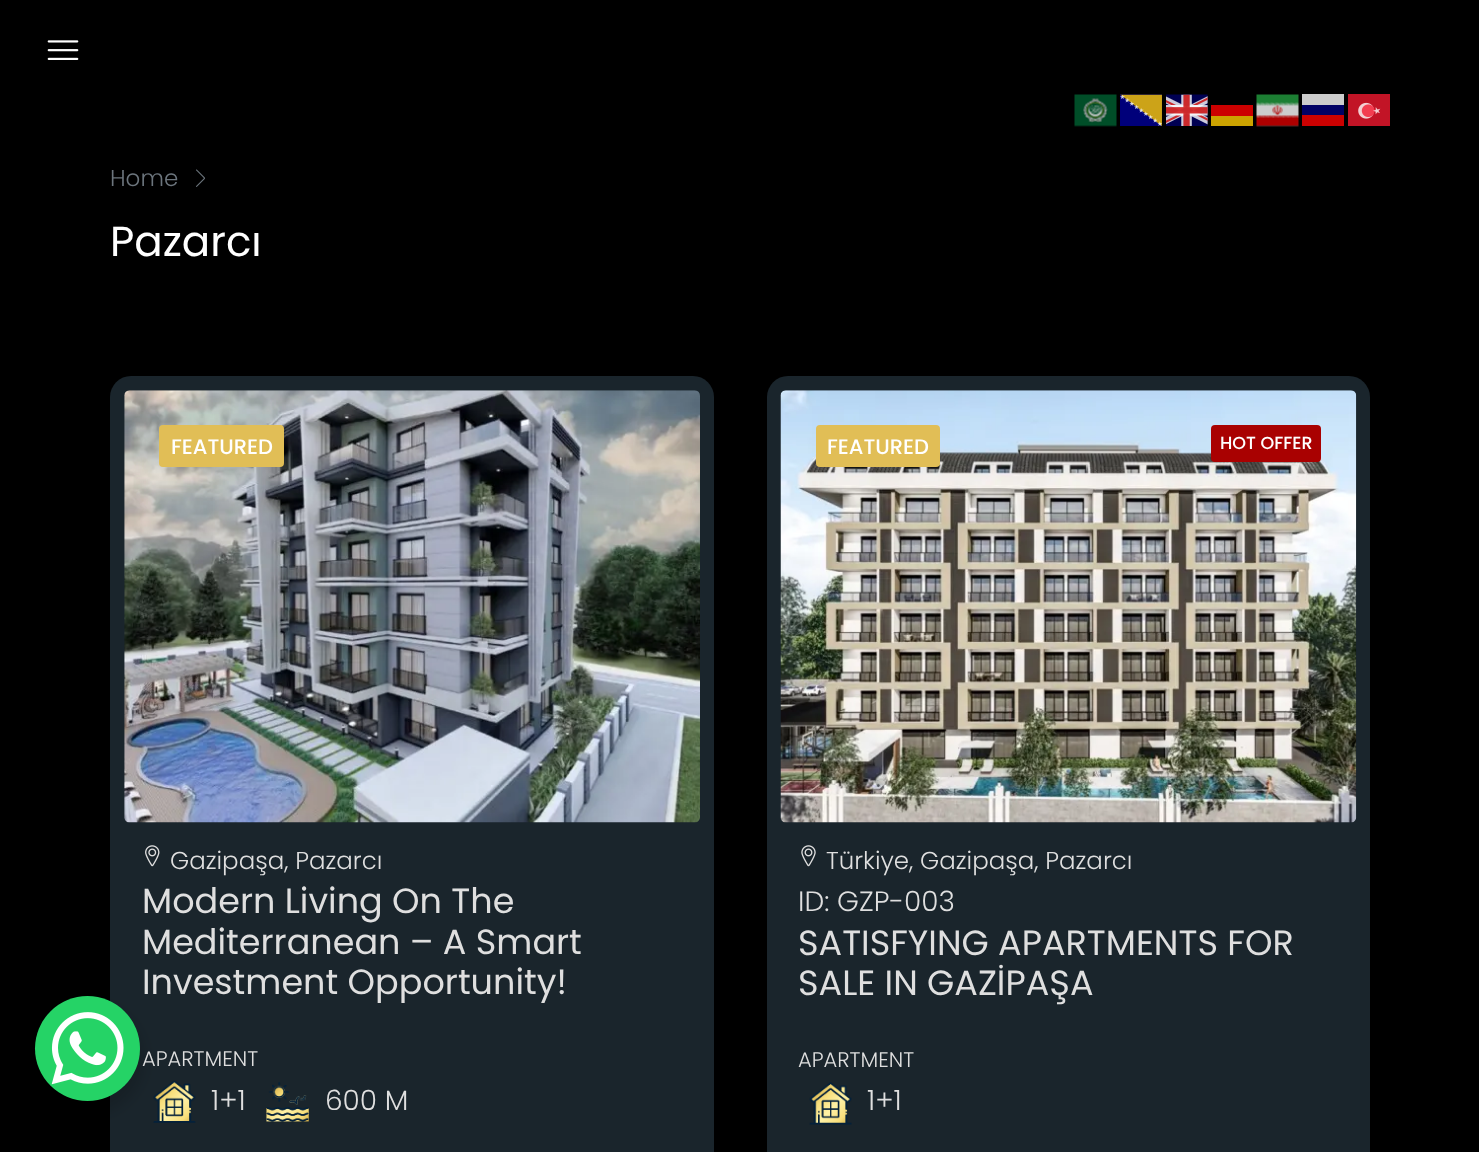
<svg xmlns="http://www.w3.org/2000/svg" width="1479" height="1152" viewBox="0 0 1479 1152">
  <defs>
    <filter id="blur1" x="-50%" y="-200%" width="200%" height="500%"><feGaussianBlur stdDeviation="7"/></filter>
    <clipPath id="clip1"><rect x="142" y="882" width="541" height="121"/></clipPath>
  </defs>
  <rect width="100%" height="100%" fill="#000000"/>
  <image x="1074" y="94" width="43" height="33" href="img1.png"/>
  <image x="1120" y="94" width="42" height="32" href="img2.png"/>
  <image x="1166" y="94" width="42" height="32" href="img3.png"/>
  <rect x="1211" y="105" width="42" height="11" fill="#cc0000"/>
  <image x="1256" y="94" width="43" height="33" href="img4.png"/>
  <rect x="1302" y="94" width="42" height="11" fill="#cccccc"/>
  <image x="1348" y="94" width="42" height="32" href="img5.png"/>
  <rect x="1302" y="105" width="42" height="10" fill="#010165"/>
  <rect x="1211" y="116" width="42" height="10" fill="#cca300"/>
  <rect x="1302" y="115" width="42" height="11" fill="#cb0101"/>
  <rect x="110" y="376" width="604" height="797" rx="21" fill="#1a252c"/>
  <image x="153" y="1080" width="43" height="43" href="img11.png"/>
  <rect x="32" y="1003" width="112" height="112" rx="56" fill="#000000" fill-opacity="0.15" filter="url(#blur1)"/>
  <circle cx="87.5" cy="1048.5" r="52.5" fill="#25d366"/>
  <image x="51" y="1012" width="73" height="73" href="img6.png"/>
  <image x="47" y="40" width="32" height="20" href="img7.png"/>
  <text x="110" y="186" font-family="Poppins" font-size="23" font-weight="300" fill="#6c757d">Home</text>
  <image x="196" y="169" width="9" height="18" href="img8.png"/>
  <text x="110" y="256" font-family="Poppins" font-size="42" fill="#ffffff">Pazarcı</text>
  <image x="124" y="390" width="576" height="433" href="img9.png"/>
  <rect x="159" y="425" width="125" height="42" rx="4" fill="#e1be56"/>
  <text x="171" y="454" font-family="Poppins" font-size="21" font-weight="500" fill="#ffffff">FEATURED</text>
  <image x="145" y="845" width="15" height="22" href="img10.png"/>
  <text x="170" y="869" font-family="Poppins" font-size="24.5" font-weight="300" fill="#dfdfdf">Gazipaşa, Pazarcı</text>
  <text x="142" y="913" font-family="Poppins" font-size="35" fill="#dfdfdf">Modern Living On The</text>
  <text x="142" y="954" font-family="Poppins" font-size="35" fill="#dfdfdf">Mediterranean – A Smart</text>
  <g clip-path="url(#clip1)">
    <text x="142" y="994" font-family="Poppins" font-size="35" fill="#dfdfdf">Investment Opportunity!</text>
  </g>
  <text x="142" y="1066" font-family="Poppins" font-size="21" font-weight="300" fill="#dfdfdf">APARTMENT</text>
  <text x="211" y="1110" font-family="Poppins" font-size="28" font-weight="300" fill="#dfdfdf">1+1</text>
  <image x="266" y="1082" width="43" height="40" href="img12.png"/>
  <text x="325" y="1110" font-family="Poppins" font-size="28" font-weight="300" fill="#dfdfdf">600 M</text>
  <rect x="767" y="376" width="603" height="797" rx="21" fill="#1a252c"/>
  <image x="780" y="390" width="577" height="433" href="img13.png"/>
  <rect x="816" y="425" width="124" height="42" rx="4" fill="#e1be56"/>
  <text x="827" y="454" font-family="Poppins" font-size="21" font-weight="500" fill="#ffffff">FEATURED</text>
  <rect x="1211" y="425" width="110" height="37" rx="4" fill="#a90101"/>
  <text x="1220" y="449" font-family="Poppins" font-size="17.5" font-weight="500" fill="#ffffff">HOT OFFER</text>
  <image x="801" y="845" width="15" height="22" href="img14.png"/>
  <text x="826" y="869" font-family="Poppins" font-size="24.5" font-weight="300" fill="#dfdfdf">Türkiye, Gazipaşa, Pazarcı</text>
  <text x="798" y="911" font-family="Poppins" font-size="28" font-weight="300" fill="#dfdfdf">ID: GZP-003</text>
  <text x="798" y="955" font-family="Poppins" font-size="35" fill="#dfdfdf">SATISFYING APARTMENTS FOR</text>
  <text x="798" y="995" font-family="Poppins" font-size="35" fill="#dfdfdf">SALE IN GAZİPAŞA</text>
  <text x="798" y="1067" font-family="Poppins" font-size="21" font-weight="300" fill="#dfdfdf">APARTMENT</text>
  <image x="809" y="1082" width="43" height="43" href="img15.png"/>
  <text x="867" y="1110" font-family="Poppins" font-size="28" font-weight="300" fill="#dfdfdf">1+1</text>
</svg>
